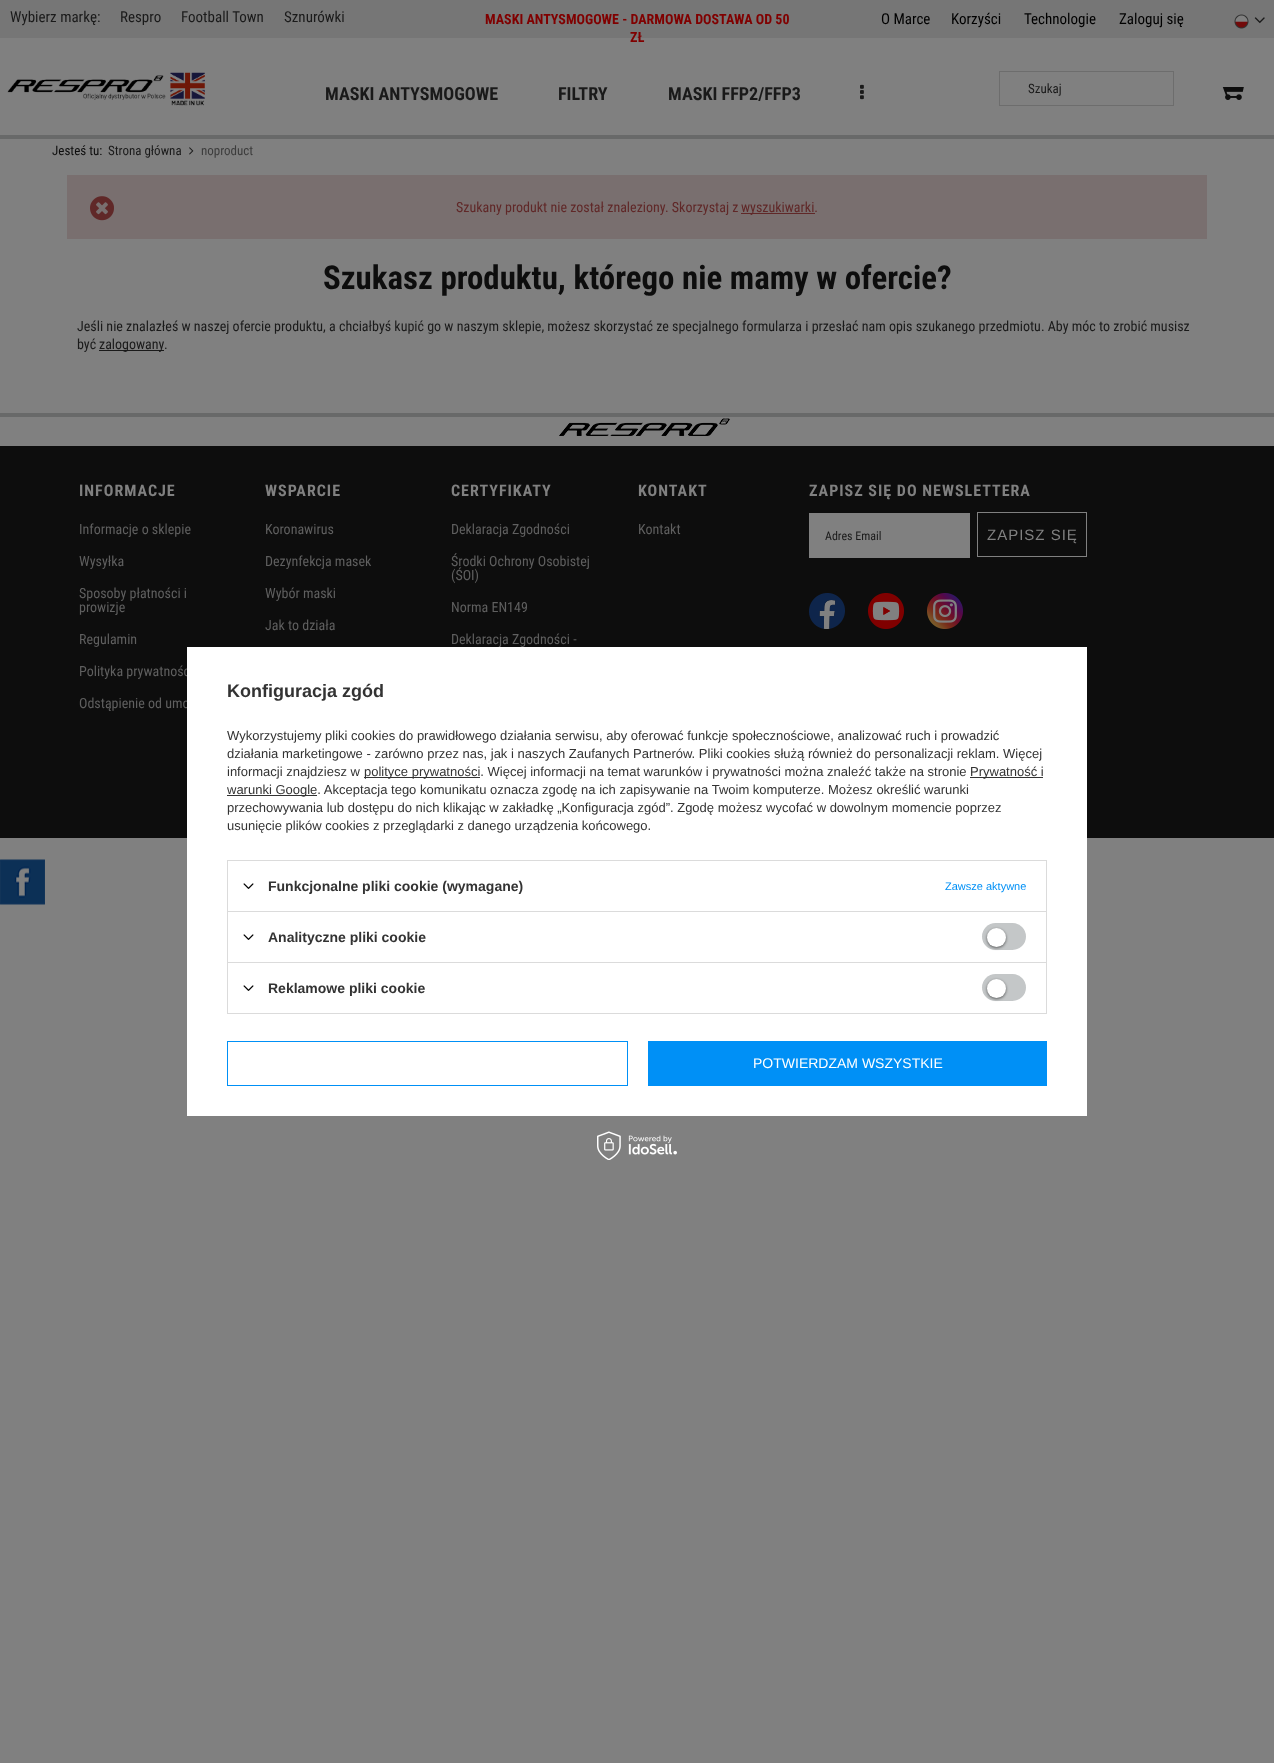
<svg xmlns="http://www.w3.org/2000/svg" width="1274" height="1763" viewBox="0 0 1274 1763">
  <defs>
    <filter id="blur1" x="-50%" y="-200%" width="200%" height="500%"><feGaussianBlur stdDeviation="1.5"/></filter>
  </defs>
  <rect width="100%" height="100%" fill="#808080"/>
  <rect x="0" y="135" width="1274" height="4" fill="#686969"/>
  <rect x="0" y="0" width="1274" height="38" fill="#767676"/>
  <text x="10" y="22" font-family="Roboto Condensed" font-size="15" fill="#1a1a1a">Wybierz markę:</text>
  <text x="120" y="22" font-family="Roboto Condensed" font-size="15" fill="#1a1a1a">Respro</text>
  <text x="181" y="22" font-family="Roboto Condensed" font-size="15" fill="#1a1a1a">Football Town</text>
  <text x="284" y="22" font-family="Roboto Condensed" font-size="15" fill="#1a1a1a">Sznurówki</text>
  <text x="485" y="24" font-family="Roboto Condensed" font-size="14" font-weight="bold" fill="#800000">MASKI ANTYSMOGOWE - DARMOWA DOSTAWA OD 50</text>
  <text x="630" y="42" font-family="Roboto Condensed" font-size="14" font-weight="bold" fill="#800000">ZŁ</text>
  <text x="881" y="24" font-family="Roboto Condensed" font-size="15" fill="#000000">O Marce</text>
  <text x="951" y="24" font-family="Roboto Condensed" font-size="15" fill="#000000">Korzyści</text>
  <text x="1024" y="24" font-family="Roboto Condensed" font-size="15" fill="#000000">Technologie</text>
  <text x="1119" y="24" font-family="Roboto Condensed" font-size="15" fill="#000000">Zaloguj się</text>
  <image x="1234" y="14" width="15" height="15" href="img1.png"/>
  <image x="1254" y="17" width="11" height="7" href="img2.png"/>
  <image x="7" y="72" width="198" height="34" href="img3.png"/>
  <text x="325" y="100" font-family="Roboto Condensed" font-size="18.1" font-weight="bold" fill="#1a1a1a">MASKI ANTYSMOGOWE</text>
  <text x="558" y="100" font-family="Roboto Condensed" font-size="18.1" font-weight="bold" fill="#1a1a1a">FILTRY</text>
  <text x="668" y="100" font-family="Roboto Condensed" font-size="18.1" font-weight="bold" fill="#1a1a1a">MASKI FFP2/FFP3</text>
  <image x="860" y="84" width="4" height="16" href="img4.png"/>
  <rect x="999.5" y="71.5" width="174" height="34" fill="none" stroke="#6d6d6d"/>
  <text x="1028" y="93" font-family="Roboto Condensed" font-size="13" fill="#1a1a1a">Szukaj</text>
  <image x="1222" y="87" width="22" height="13" href="img5.png"/>
  <text x="52" y="155" font-family="Roboto Condensed" font-size="13" fill="#0d0d0d">Jesteś tu:</text>
  <text x="108" y="155" font-family="Roboto Condensed" font-size="13" fill="#1a1a1a">Strona główna</text>
  <image x="189" y="147" width="5" height="8" href="img6.png"/>
  <text x="201" y="155" font-family="Roboto Condensed" font-size="13" fill="#3c3c3c">noproduct</text>
  <rect x="67" y="175" width="1140" height="64" fill="#796f6f"/>
  <image x="90" y="196" width="24" height="25" href="img7.png"/>
  <text x="456" y="212" font-family="Roboto Condensed" font-size="14" fill="#602828">Szukany produkt nie został znaleziony. Skorzystaj z</text>
  <rect x="741" y="213" width="74" height="1" fill="#602828"/>
  <text x="741" y="212" font-family="Roboto Condensed" font-size="14" fill="#602828">wyszukiwarki.</text>
  <text x="323" y="289" font-family="Roboto Condensed" font-size="32.9" font-weight="bold" fill="#0d0d0d">Szukasz produktu, którego nie mamy w ofercie?</text>
  <text x="77" y="331" font-family="Roboto Condensed" font-size="14" fill="#1a1a1a">Jeśli nie znalazłeś w naszej ofercie produktu, a chciałbyś kupić go w naszym sklepie, możesz skorzystać ze specjalnego formularza i przesłać nam opis szukanego przedmiotu. Aby móc to zrobić musisz</text>
  <text x="77" y="349" font-family="Roboto Condensed" font-size="14" fill="#1a1a1a">być</text>
  <rect x="99" y="350" width="65" height="1" fill="#1a1a1a"/>
  <text x="99" y="349" font-family="Roboto Condensed" font-size="14" fill="#1a1a1a">zalogowany</text>
  <text x="164" y="349" font-family="Roboto Condensed" font-size="14" fill="#1a1a1a">.</text>
  <rect x="0" y="446" width="1274" height="392" fill="#0d0d0d"/>
  <rect x="0" y="413" width="1274" height="4" fill="#686969"/>
  <image x="559" y="418" width="171" height="18" href="img8.png"/>
  <text x="79" y="496" font-family="Roboto Condensed" font-size="16" font-weight="bold" letter-spacing="1" fill="#808080">INFORMACJE</text>
  <text x="79" y="534" font-family="Roboto Condensed" font-size="14" fill="#5f5f5f">Informacje o sklepie</text>
  <text x="79" y="566" font-family="Roboto Condensed" font-size="14" fill="#5f5f5f">Wysyłka</text>
  <text x="79" y="598" font-family="Roboto Condensed" font-size="14" fill="#5f5f5f">Sposoby płatności i</text>
  <text x="79" y="612" font-family="Roboto Condensed" font-size="14" fill="#5f5f5f">prowizje</text>
  <text x="79" y="644" font-family="Roboto Condensed" font-size="14" fill="#5f5f5f">Regulamin</text>
  <text x="79" y="676" font-family="Roboto Condensed" font-size="14" fill="#5f5f5f">Polityka prywatnośc</text>
  <text x="79" y="708" font-family="Roboto Condensed" font-size="14" fill="#5f5f5f">Odstąpienie od umo</text>
  <text x="265" y="496" font-family="Roboto Condensed" font-size="16" font-weight="bold" letter-spacing="1" fill="#808080">WSPARCIE</text>
  <text x="265" y="534" font-family="Roboto Condensed" font-size="14" fill="#5f5f5f">Koronawirus</text>
  <text x="265" y="566" font-family="Roboto Condensed" font-size="14" fill="#5f5f5f">Dezynfekcja masek</text>
  <text x="265" y="598" font-family="Roboto Condensed" font-size="14" fill="#5f5f5f">Wybór maski</text>
  <text x="265" y="630" font-family="Roboto Condensed" font-size="14" fill="#5f5f5f">Jak to działa</text>
  <text x="451" y="496" font-family="Roboto Condensed" font-size="16" font-weight="bold" letter-spacing="1" fill="#808080">CERTYFIKATY</text>
  <text x="451" y="534" font-family="Roboto Condensed" font-size="14" fill="#5f5f5f">Deklaracja Zgodności</text>
  <text x="451" y="566" font-family="Roboto Condensed" font-size="14" fill="#5f5f5f">Środki Ochrony Osobistej</text>
  <text x="451" y="580" font-family="Roboto Condensed" font-size="14" fill="#5f5f5f">(ŚOI)</text>
  <text x="451" y="612" font-family="Roboto Condensed" font-size="14" fill="#5f5f5f">Norma EN149</text>
  <text x="451" y="644" font-family="Roboto Condensed" font-size="14" fill="#5f5f5f">Deklaracja Zgodności -</text>
  <text x="638" y="496" font-family="Roboto Condensed" font-size="16" font-weight="bold" letter-spacing="1" fill="#808080">KONTAKT</text>
  <text x="638" y="534" font-family="Roboto Condensed" font-size="14" fill="#5f5f5f">Kontakt</text>
  <text x="809" y="496" font-family="Roboto Condensed" font-size="16" font-weight="bold" letter-spacing="1" fill="#808080">ZAPISZ SIĘ DO NEWSLETTERA</text>
  <rect x="809" y="513" width="161" height="45" fill="#808080"/>
  <text x="825" y="540" font-family="Roboto Condensed" font-size="12" fill="#1a1a1a">Adres Email</text>
  <rect x="977.5" y="512.5" width="109" height="44" fill="none" stroke="#808080"/>
  <text x="987" y="540" font-family="Liberation Sans" font-size="15" letter-spacing="1" fill="#808080">ZAPISZ SIĘ</text>
  <image x="809" y="593" width="36" height="36" href="img9.png"/>
  <image x="868" y="593" width="36" height="36" href="img10.png"/>
  <image x="927" y="593" width="36" height="36" href="img11.png"/>
  <image x="0" y="859" width="45" height="46" href="img12.png"/>
  <rect x="187" y="647" width="900" height="469" fill="#ffffff"/>
  <text x="227" y="697" font-family="Liberation Sans" font-size="18" font-weight="bold" fill="#333333">Konfiguracja zgód</text>
  <text x="227" y="740" font-family="Liberation Sans" font-size="13" fill="#333333">Wykorzystujemy pliki cookies do prawidłowego działania serwisu, aby oferować funkcje społecznościowe, analizować ruch i prowadzić</text>
  <text x="227" y="758" font-family="Liberation Sans" font-size="13" fill="#333333">działania marketingowe - zarówno przez nas, jak i naszych Zaufanych Partnerów. Pliki cookies służą również do personalizacji reklam. Więcej</text>
  <text x="227" y="776" font-family="Liberation Sans" font-size="13" fill="#333333">informacji znajdziesz w</text>
  <rect x="364" y="777" width="116" height="1" fill="#333333"/>
  <text x="364" y="776" font-family="Liberation Sans" font-size="13" fill="#333333">polityce prywatności. Więcej informacji na temat warunków i prywatności można znaleźć także na stronie</text>
  <rect x="970" y="777" width="73" height="1" fill="#333333"/>
  <text x="970" y="776" font-family="Liberation Sans" font-size="13" fill="#333333">Prywatność i</text>
  <rect x="227" y="795" width="90" height="1" fill="#333333"/>
  <text x="227" y="794" font-family="Liberation Sans" font-size="13" fill="#333333">warunki Google. Akceptacja tego komunikatu oznacza zgodę na ich zapisywanie na Twoim komputerze. Możesz określić warunki</text>
  <text x="227" y="812" font-family="Liberation Sans" font-size="13" fill="#333333">przechowywania lub dostępu do nich klikając w zakładkę „Konfiguracja zgód”. Zgodę możesz wycofać w dowolnym momencie poprzez</text>
  <text x="227" y="830" font-family="Liberation Sans" font-size="13" fill="#333333">usunięcie plików cookies z przeglądarki z danego urządzenia końcowego.</text>
  <rect x="227" y="860" width="820" height="1" fill="#dbdbdb"/>
  <rect x="1046" y="860" width="1" height="51" fill="#dbdbdb"/>
  <rect x="227" y="860" width="1" height="51" fill="#dbdbdb"/>
  <image x="243" y="883" width="11" height="6" href="img13.png"/>
  <text x="268" y="891" font-family="Liberation Sans" font-size="14" font-weight="bold" fill="#333333">Funkcjonalne pliki cookie (wymagane)</text>
  <text x="945" y="890" font-family="Liberation Sans" font-size="11" fill="#0090f6">Zawsze aktywne</text>
  <rect x="227" y="911" width="820" height="1" fill="#dbdbdb"/>
  <rect x="1046" y="911" width="1" height="51" fill="#dbdbdb"/>
  <rect x="227" y="911" width="1" height="51" fill="#dbdbdb"/>
  <image x="243" y="934" width="11" height="6" href="img13.png"/>
  <text x="268" y="942" font-family="Liberation Sans" font-size="14" font-weight="bold" fill="#333333">Analityczne pliki cookie</text>
  <rect x="982" y="923" width="44" height="27" rx="13.5" fill="#c4c7c8"/>
  <rect x="987" y="929" width="19" height="19" rx="9.5" fill="#000000" fill-opacity="0.56" filter="url(#blur1)"/>
  <circle cx="996.5" cy="937.5" r="9.5" fill="#ffffff"/>
  <rect x="227.5" y="962.5" width="819" height="51" fill="none" stroke="#dbdbdb"/>
  <image x="243" y="985" width="11" height="6" href="img13.png"/>
  <text x="268" y="993" font-family="Liberation Sans" font-size="14" font-weight="bold" fill="#333333">Reklamowe pliki cookie</text>
  <rect x="982" y="974" width="44" height="27" rx="13.5" fill="#c4c7c8"/>
  <rect x="987" y="980" width="19" height="19" rx="9.5" fill="#000000" fill-opacity="0.56" filter="url(#blur1)"/>
  <circle cx="996.5" cy="988.5" r="9.5" fill="#ffffff"/>
  <rect x="227.5" y="1041.5" width="400" height="44" fill="none" stroke="#0090f6"/>
  <rect x="648" y="1041" width="399" height="45" fill="#0090f6"/>
  <text x="753" y="1068" font-family="Liberation Sans" font-size="14" fill="#ffffff">POTWIERDZAM WSZYSTKIE</text>
  <image x="597" y="1131" width="80" height="29" href="img14.png"/>
</svg>
